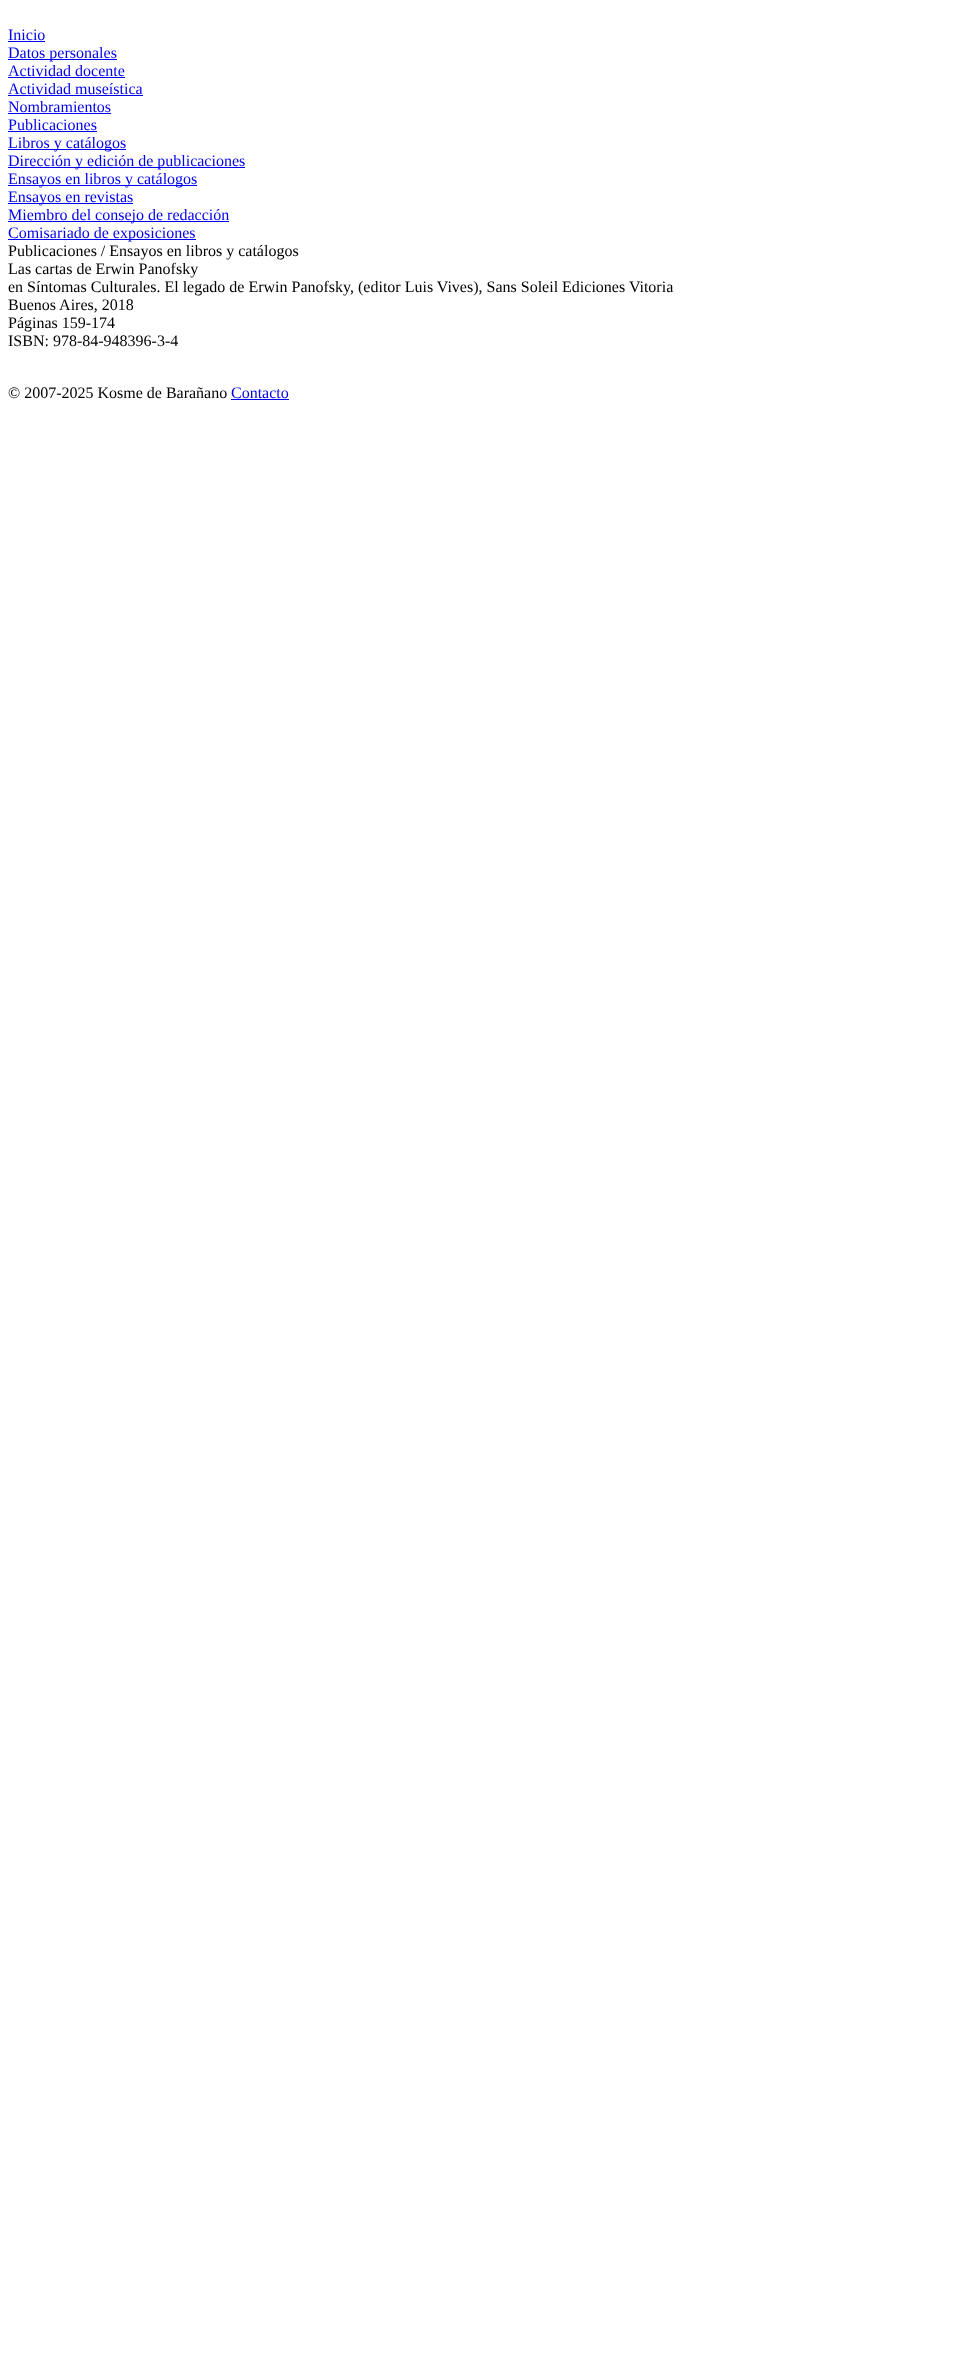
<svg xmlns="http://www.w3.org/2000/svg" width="957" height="2369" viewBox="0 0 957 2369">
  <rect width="100%" height="100%" fill="#ffffff"/>
  <text x="8" y="40" font-family="Liberation Serif" font-size="16" fill="#0000ee">Inicio</text>
  <rect x="8" y="41" width="37" height="1" fill="#0000ee"/>
  <rect x="8" y="59" width="109" height="1" fill="#0000ee"/>
  <text x="8" y="58" font-family="Liberation Serif" font-size="16" fill="#0000ee">Datos personales</text>
  <text x="8" y="76" font-family="Liberation Serif" font-size="16" fill="#0000ee">Actividad docente</text>
  <rect x="8" y="77" width="117" height="1" fill="#0000ee"/>
  <text x="8" y="94" font-family="Liberation Serif" font-size="16" fill="#0000ee">Actividad museística</text>
  <rect x="8" y="95" width="135" height="1" fill="#0000ee"/>
  <text x="8" y="112" font-family="Liberation Serif" font-size="16" fill="#0000ee">Nombramientos</text>
  <rect x="8" y="113" width="103" height="1" fill="#0000ee"/>
  <text x="8" y="130" font-family="Liberation Serif" font-size="16" fill="#0000ee">Publicaciones</text>
  <rect x="8" y="131" width="89" height="1" fill="#0000ee"/>
  <rect x="8" y="149" width="118" height="1" fill="#0000ee"/>
  <text x="8" y="148" font-family="Liberation Serif" font-size="16" fill="#0000ee">Libros y catálogos</text>
  <rect x="8" y="167" width="237" height="1" fill="#0000ee"/>
  <text x="8" y="166" font-family="Liberation Serif" font-size="16" fill="#0000ee">Dirección y edición de publicaciones</text>
  <rect x="8" y="185" width="189" height="1" fill="#0000ee"/>
  <text x="8" y="184" font-family="Liberation Serif" font-size="16" fill="#0000ee">Ensayos en libros y catálogos</text>
  <rect x="8" y="203" width="125" height="1" fill="#0000ee"/>
  <text x="8" y="202" font-family="Liberation Serif" font-size="16" fill="#0000ee">Ensayos en revistas</text>
  <rect x="8" y="221" width="221" height="1" fill="#0000ee"/>
  <text x="8" y="220" font-family="Liberation Serif" font-size="16" fill="#0000ee">Miembro del consejo de redacción</text>
  <rect x="8" y="239" width="188" height="1" fill="#0000ee"/>
  <text x="8" y="238" font-family="Liberation Serif" font-size="16" fill="#0000ee">Comisariado de exposiciones</text>
  <text x="8" y="256" font-family="Liberation Serif" font-size="16" fill="#000000">Publicaciones / Ensayos en libros y catálogos</text>
  <text x="8" y="274" font-family="Liberation Serif" font-size="16" fill="#000000">Las cartas de Erwin Panofsky</text>
  <text x="8" y="292" font-family="Liberation Serif" font-size="16" fill="#000000">en Síntomas Culturales. El legado de Erwin Panofsky, (editor Luis Vives), Sans Soleil Ediciones Vitoria</text>
  <text x="8" y="310" font-family="Liberation Serif" font-size="16" fill="#000000">Buenos Aires, 2018</text>
  <text x="8" y="328" font-family="Liberation Serif" font-size="16" fill="#000000">Páginas 159-174</text>
  <text x="8" y="346" font-family="Liberation Serif" font-size="16" fill="#000000">ISBN: 978-84-948396-3-4</text>
  <text x="8" y="398" font-family="Liberation Serif" font-size="16" fill="#000000">© 2007-2025 Kosme de Barañano</text>
  <text x="231" y="398" font-family="Liberation Serif" font-size="16" fill="#0000ee">Contacto</text>
  <rect x="231" y="399" width="58" height="1" fill="#0000ee"/>
</svg>
